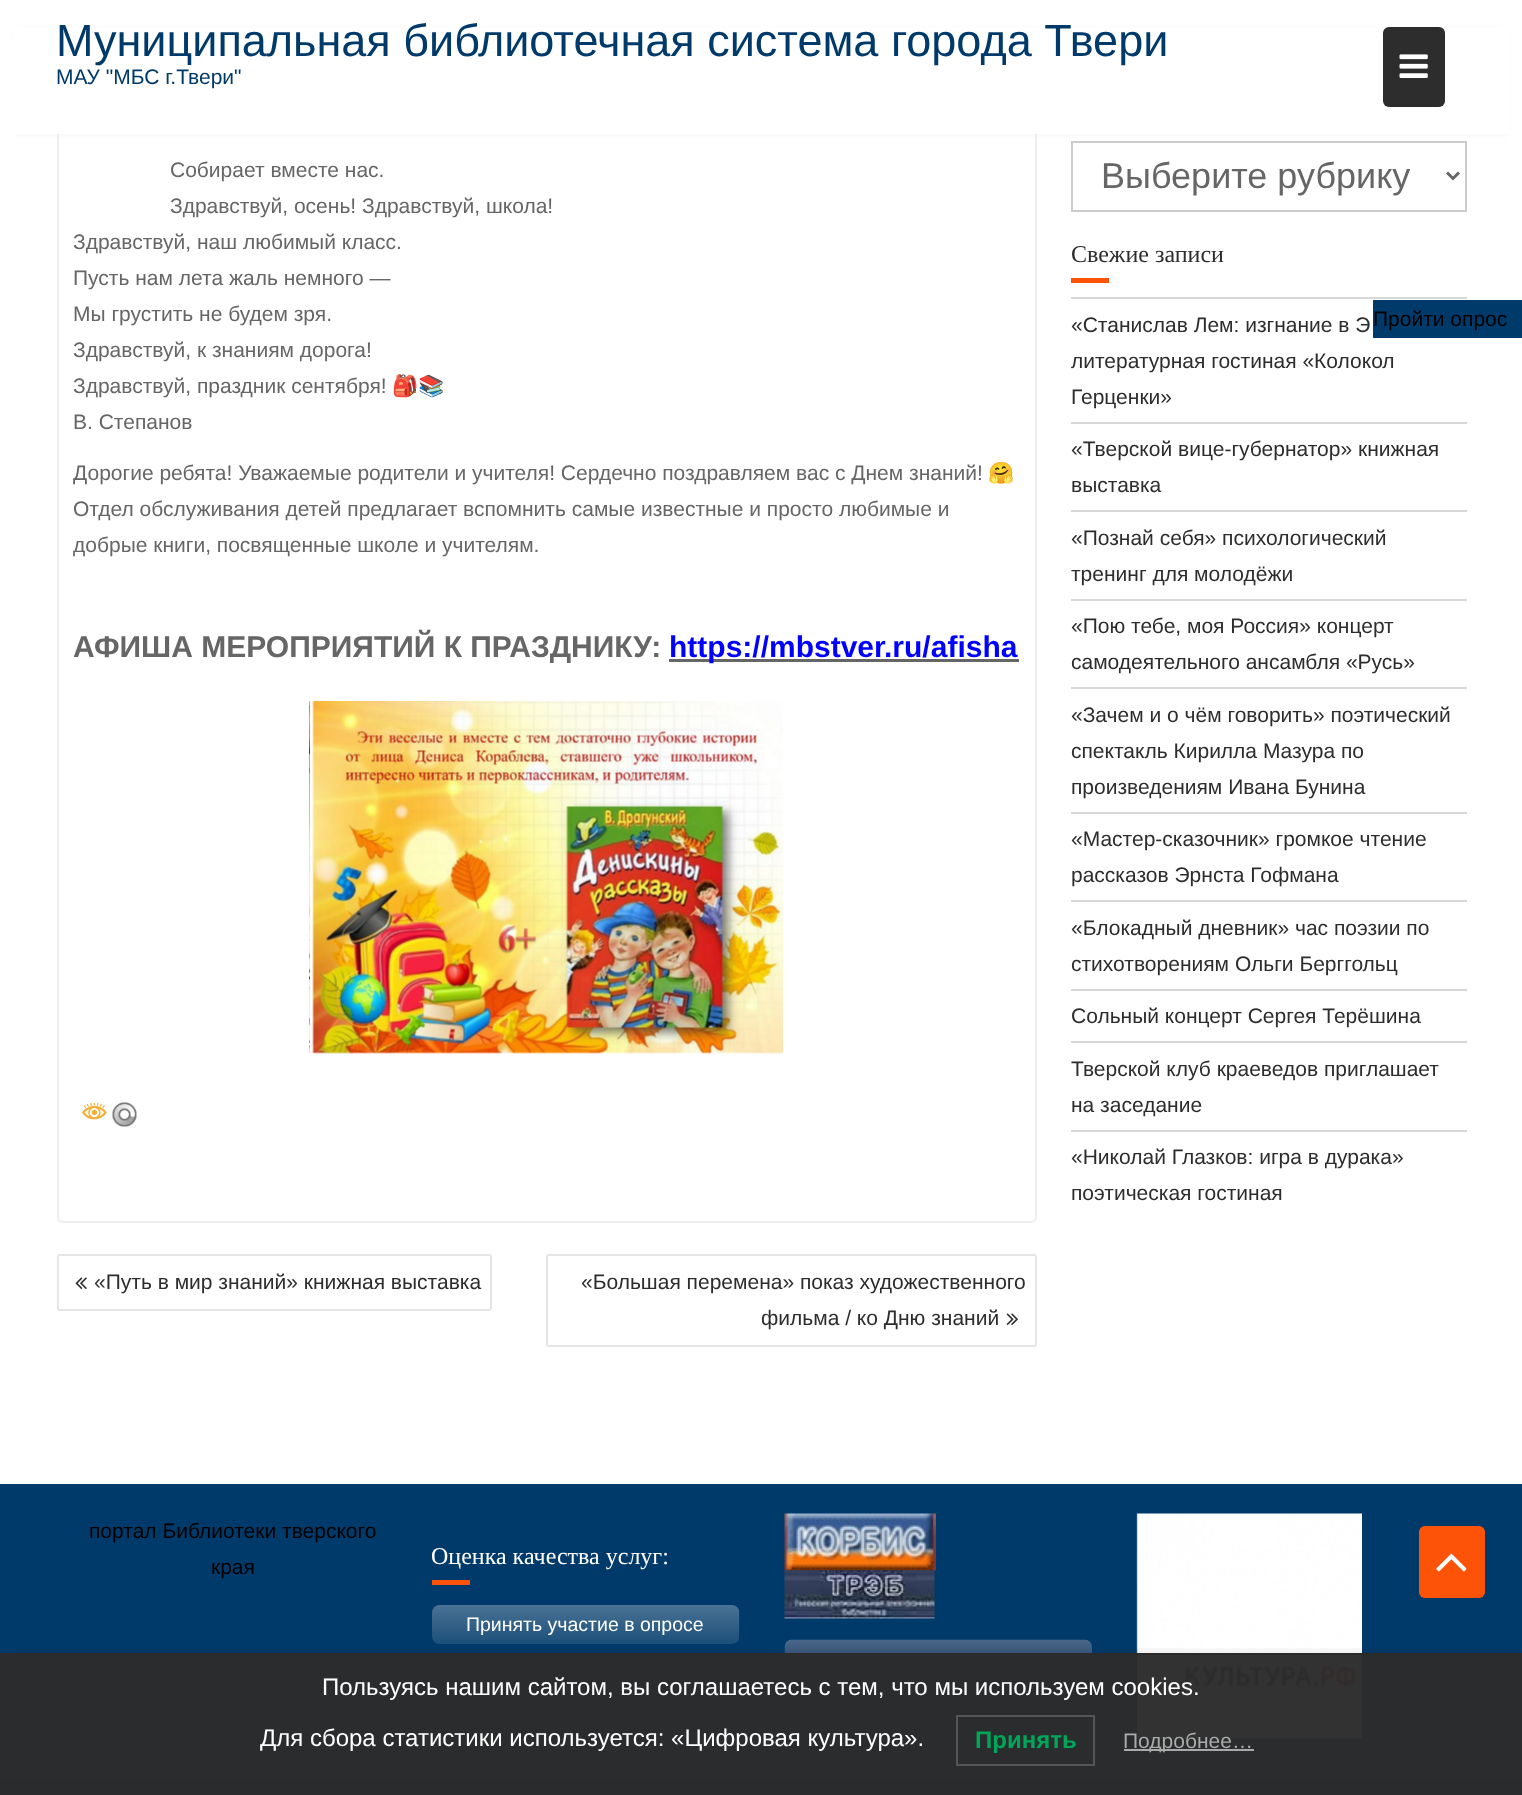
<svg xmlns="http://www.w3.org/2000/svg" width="1522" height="1795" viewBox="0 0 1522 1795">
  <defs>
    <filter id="blur1" x="-50%" y="-200%" width="200%" height="500%"><feGaussianBlur stdDeviation="3"/></filter>
    <clipPath id="clip1"><rect x="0" y="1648" width="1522" height="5"/></clipPath>
    <filter id="blur2" x="-50%" y="-200%" width="200%" height="500%"><feGaussianBlur stdDeviation="6"/></filter>
  </defs>
  <rect width="100%" height="100%" fill="#ffffff"/>
  <rect x="58" y="55" width="978" height="1167" rx="5" fill="none" stroke="#eeeeee" stroke-width="2"/>
  <rect x="1072" y="142" width="394" height="69" fill="none" stroke="#cccccc" stroke-width="2"/>
  <rect x="15" y="30" width="1493" height="104" fill="#eeeeee" fill-opacity="0.9" filter="url(#blur1)"/>
  <rect x="12" y="27" width="1499" height="107" fill="#ffffff"/>
  <text x="56" y="56" font-family="Liberation Sans" font-size="45" fill="#003a6a">Муниципальная библиотечная система города Твери</text>
  <rect x="1383" y="27" width="62" height="80" rx="6" fill="#2d2d2d"/>
  <image x="1399" y="54" width="29" height="24" href="img1.png"/>
  <text x="56" y="84" font-family="Liberation Sans" font-size="21" fill="#003a6a">МАУ "МБС г.Твери"</text>
  <text x="170" y="177" font-family="Liberation Sans" font-size="21" fill="#666666">Собирает вместе нас.</text>
  <text x="170" y="213" font-family="Liberation Sans" font-size="21" fill="#666666">Здравствуй, осень! Здравствуй, школа!</text>
  <text x="73" y="249" font-family="Liberation Sans" font-size="21" fill="#666666">Здравствуй, наш любимый класс.</text>
  <text x="73" y="285" font-family="Liberation Sans" font-size="21" fill="#666666">Пусть нам лета жаль немного —</text>
  <text x="73" y="321" font-family="Liberation Sans" font-size="21" fill="#666666">Мы грустить не будем зря.</text>
  <text x="73" y="357" font-family="Liberation Sans" font-size="21" fill="#666666">Здравствуй, к знаниям дорога!</text>
  <text x="73" y="393" font-family="Liberation Sans" font-size="21" fill="#666666">Здравствуй, праздник сентября!</text>
  <text x="392" y="393" font-family="Noto Color Emoji" font-size="21" fill="#666666">🎒📚</text>
  <text x="73" y="429" font-family="Liberation Sans" font-size="21" fill="#666666">В. Степанов</text>
  <text x="73" y="480" font-family="Liberation Sans" font-size="21" fill="#666666">Дорогие ребята! Уважаемые родители и учителя! Сердечно поздравляем вас с Днем знаний!</text>
  <text x="988" y="480" font-family="Noto Color Emoji" font-size="21" fill="#666666">🤗</text>
  <text x="73" y="516" font-family="Liberation Sans" font-size="21" fill="#666666">Отдел обслуживания детей предлагает вспомнить самые известные и просто любимые и</text>
  <text x="73" y="552" font-family="Liberation Sans" font-size="21" fill="#666666">добрые книги, посвященные школе и учителям.</text>
  <text x="73" y="657" font-family="Liberation Sans" font-size="30" font-weight="bold" fill="#666666">АФИША МЕРОПРИЯТИЙ К ПРАЗДНИКУ:</text>
  <rect x="669" y="659" width="350" height="3" fill="#666666"/>
  <text x="669" y="657" font-family="Liberation Sans" font-size="30" font-weight="bold" fill="#0000ff">https://mbstver.ru/afisha</text>
  <image x="309" y="701" width="2" height="353" href="img2.png"/>
  <image x="312" y="701" width="471" height="353" href="img3.png"/>
  <image x="82" y="1103" width="25" height="17" href="img4.png"/>
  <image x="112" y="1102" width="25" height="25" href="img5.png"/>
  <rect x="58" y="1255" width="433" height="55" rx="2" fill="none" stroke="#e5e5e5" stroke-width="2"/>
  <image x="75" y="1277" width="12" height="12" href="img6.png"/>
  <text x="94" y="1289" font-family="Liberation Sans" font-size="21" fill="#2d2d2d">«Путь в мир знаний» книжная выставка</text>
  <rect x="547" y="1255" width="489" height="91" rx="2" fill="none" stroke="#e5e5e5" stroke-width="2"/>
  <text x="581" y="1289" font-family="Liberation Sans" font-size="21" fill="#2d2d2d">«Большая перемена» показ художественного</text>
  <text x="761" y="1325" font-family="Liberation Sans" font-size="21" fill="#2d2d2d">фильма / ко Дню знаний</text>
  <image x="1006" y="1313" width="12" height="12" href="img7.png"/>
  <path d="M1447 172.5L1453 178.5L1459 172.5" fill="none" stroke="#666666" stroke-width="3"/>
  <text x="1101" y="188" font-family="Liberation Sans" font-size="36" fill="#666666">Выберите рубрику</text>
  <text x="1071" y="262" font-family="Liberation Serif" font-size="24" fill="#2d2d2d">Свежие записи</text>
  <rect x="1071" y="278" width="38" height="5" fill="#fd5308"/>
  <rect x="1071" y="297" width="396" height="2" fill="#d7d7d7"/>
  <text x="1071" y="332" font-family="Liberation Sans" font-size="21" fill="#2d2d2d">«Станислав Лем: изгнание в Э</text>
  <text x="1071" y="368" font-family="Liberation Sans" font-size="21" fill="#2d2d2d">литературная гостиная «Колокол</text>
  <text x="1071" y="404" font-family="Liberation Sans" font-size="21" fill="#2d2d2d">Герценки»</text>
  <rect x="1071" y="422" width="396" height="2" fill="#d7d7d7"/>
  <text x="1071" y="456" font-family="Liberation Sans" font-size="21" fill="#2d2d2d">«Тверской вице-губернатор» книжная</text>
  <text x="1071" y="492" font-family="Liberation Sans" font-size="21" fill="#2d2d2d">выставка</text>
  <rect x="1071" y="510" width="396" height="2" fill="#d7d7d7"/>
  <text x="1071" y="545" font-family="Liberation Sans" font-size="21" fill="#2d2d2d">«Познай себя» психологический</text>
  <text x="1071" y="581" font-family="Liberation Sans" font-size="21" fill="#2d2d2d">тренинг для молодёжи</text>
  <rect x="1071" y="599" width="396" height="2" fill="#d7d7d7"/>
  <text x="1071" y="633" font-family="Liberation Sans" font-size="21" fill="#2d2d2d">«Пою тебе, моя Россия» концерт</text>
  <text x="1071" y="669" font-family="Liberation Sans" font-size="21" fill="#2d2d2d">самодеятельного ансамбля «Русь»</text>
  <rect x="1071" y="687" width="396" height="2" fill="#d7d7d7"/>
  <text x="1071" y="722" font-family="Liberation Sans" font-size="21" fill="#2d2d2d">«Зачем и о чём говорить» поэтический</text>
  <text x="1071" y="758" font-family="Liberation Sans" font-size="21" fill="#2d2d2d">спектакль Кирилла Мазура по</text>
  <text x="1071" y="794" font-family="Liberation Sans" font-size="21" fill="#2d2d2d">произведениям Ивана Бунина</text>
  <rect x="1071" y="812" width="396" height="2" fill="#d7d7d7"/>
  <text x="1071" y="846" font-family="Liberation Sans" font-size="21" fill="#2d2d2d">«Мастер-сказочник» громкое чтение</text>
  <text x="1071" y="882" font-family="Liberation Sans" font-size="21" fill="#2d2d2d">рассказов Эрнста Гофмана</text>
  <rect x="1071" y="900" width="396" height="2" fill="#d7d7d7"/>
  <text x="1071" y="935" font-family="Liberation Sans" font-size="21" fill="#2d2d2d">«Блокадный дневник» час поэзии по</text>
  <text x="1071" y="971" font-family="Liberation Sans" font-size="21" fill="#2d2d2d">стихотворениям Ольги Берггольц</text>
  <rect x="1071" y="989" width="396" height="2" fill="#d7d7d7"/>
  <text x="1071" y="1023" font-family="Liberation Sans" font-size="21" fill="#2d2d2d">Сольный концерт Сергея Терёшина</text>
  <rect x="1071" y="1041" width="396" height="2" fill="#d7d7d7"/>
  <text x="1071" y="1076" font-family="Liberation Sans" font-size="21" fill="#2d2d2d">Тверской клуб краеведов приглашает</text>
  <text x="1071" y="1112" font-family="Liberation Sans" font-size="21" fill="#2d2d2d">на заседание</text>
  <rect x="1071" y="1130" width="396" height="2" fill="#d7d7d7"/>
  <text x="1071" y="1164" font-family="Liberation Sans" font-size="21" fill="#2d2d2d">«Николай Глазков: игра в дурака»</text>
  <text x="1071" y="1200" font-family="Liberation Sans" font-size="21" fill="#2d2d2d">поэтическая гостиная</text>
  <rect x="0" y="1484" width="1522" height="311" fill="#003a6a"/>
  <text x="89" y="1538" font-family="Liberation Sans" font-size="21" fill="#000000">портал Библиотеки тверского</text>
  <text x="211" y="1574" font-family="Liberation Sans" font-size="21" fill="#000000">края</text>
  <text x="431" y="1564" font-family="Liberation Serif" font-size="24" fill="#ffffff">Оценка качества услуг:</text>
  <rect x="432" y="1580" width="38" height="5" fill="#fd5308"/>
  <image x="432" y="1605" width="308" height="39" href="img8.png"/>
  <text x="466" y="1631" font-family="Liberation Sans" font-size="19.5" fill="#ffffff">Принять участие в опросе</text>
  <image x="784" y="1513" width="152" height="58" href="img9.png"/>
  <image x="784" y="1570" width="151" height="49" href="img10.png"/>
  <rect x="785" y="1640" width="307" height="39" rx="8" fill="#002858"/>
  <image x="784" y="1639" width="308" height="40" href="img11.png"/>
  <image x="1136" y="1513" width="226" height="226" href="img12.png"/>
  <rect x="1419" y="1526" width="66" height="72" rx="6" fill="#fd5308"/>
  <image x="1436" y="1553" width="31" height="19" href="img13.png"/>
  <rect x="1373" y="300" width="149" height="38" fill="#003a6a"/>
  <text x="1373" y="326" font-family="Liberation Sans" font-size="21" fill="#000000">Пройти опрос</text>
  <g clip-path="url(#clip1)">
    <rect x="0" y="1653" width="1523" height="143" fill="#000000" fill-opacity="0.1" filter="url(#blur2)"/>
  </g>
  <rect x="0" y="1655" width="1522" height="140" fill="#2b2b2b" fill-opacity="0.97"/>
  <rect x="0" y="1653" width="1522" height="2" fill="#2b2b2b"/>
  <text x="322" y="1695" font-family="Liberation Sans" font-size="24" fill="#ffffff">Пользуясь нашим сайтом, вы соглашаетесь с тем, что мы используем cookies.</text>
  <text x="260" y="1746" font-family="Liberation Sans" font-size="24" fill="#ffffff">Для сбора статистики используется: «Цифровая культура».</text>
  <rect x="957" y="1716" width="137" height="49" fill="none" stroke="#555555" stroke-width="2"/>
  <text x="975" y="1748" font-family="Liberation Sans" font-size="24" font-weight="bold" fill="#00a65a">Принять</text>
  <rect x="1124" y="1749" width="130" height="2" fill="#aaaaaa"/>
  <text x="1123" y="1748" font-family="Liberation Sans" font-size="21" fill="#aaaaaa">Подробнее…</text>
</svg>
